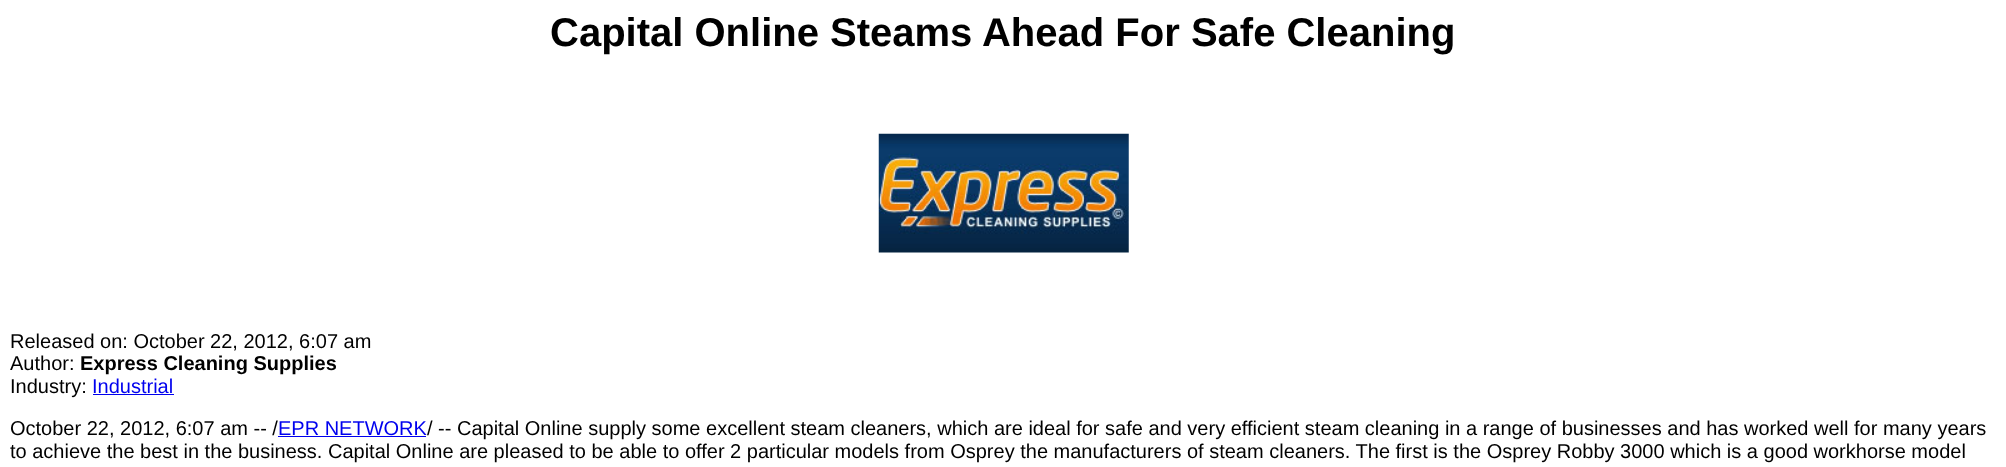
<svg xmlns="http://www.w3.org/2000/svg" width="2006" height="467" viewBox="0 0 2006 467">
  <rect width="100%" height="100%" fill="#ffffff"/>
  <text x="550" y="46" font-family="Liberation Sans" font-size="40" font-weight="bold" fill="#000000">Capital Online Steams Ahead For Safe Cleaning</text>
  <image x="878" y="133" width="251" height="120" href="img1.png"/>
  <text x="10" y="348" font-family="Liberation Sans" font-size="20" fill="#000000">Released on: October 22, 2012, 6:07 am</text>
  <text x="10" y="370" font-family="Liberation Sans" font-size="20" fill="#000000">Author:</text>
  <text x="80" y="370" font-family="Liberation Sans" font-size="20" font-weight="bold" fill="#000000">Express Cleaning Supplies</text>
  <text x="10" y="393" font-family="Liberation Sans" font-size="20" fill="#000000">Industry:</text>
  <text x="92" y="393" font-family="Liberation Sans" font-size="20" fill="#0000ee">Industrial</text>
  <rect x="93" y="394" width="81" height="1" fill="#0000ee"/>
  <text x="10" y="435" font-family="Liberation Sans" font-size="20" fill="#000000">October 22, 2012, 6:07 am -- /</text>
  <text x="278" y="435" font-family="Liberation Sans" font-size="20" fill="#0000ee">EPR NETWORK</text>
  <rect x="278" y="436" width="148" height="1" fill="#0000ee"/>
  <text x="427" y="435" font-family="Liberation Sans" font-size="20" fill="#000000">/ -- Capital Online supply some excellent steam cleaners, which are ideal for safe and very efficient steam cleaning in a range of businesses and has worked well for many years</text>
  <text x="10" y="458" font-family="Liberation Sans" font-size="20" fill="#000000">to achieve the best in the business. Capital Online are pleased to be able to offer 2 particular models from Osprey the manufacturers of steam cleaners. The first is the Osprey Robby 3000 which is a good workhorse model</text>
</svg>
